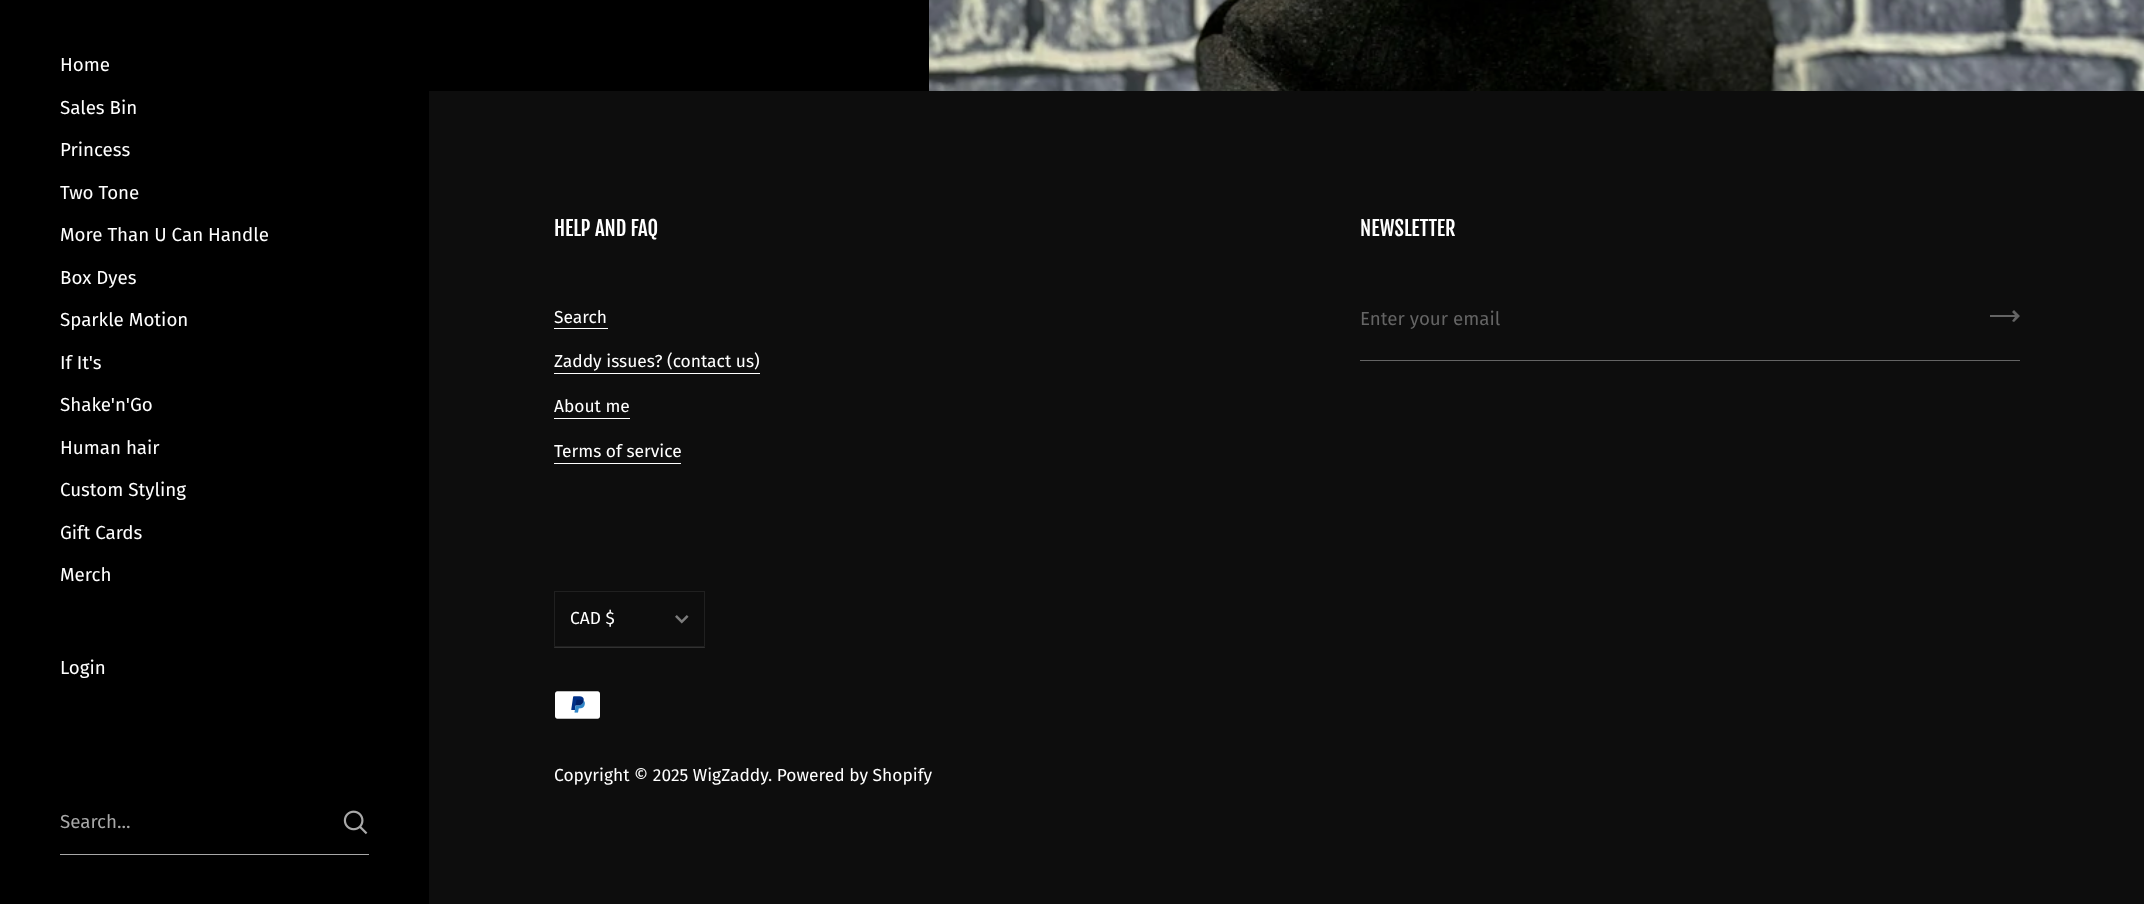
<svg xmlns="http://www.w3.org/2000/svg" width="2144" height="904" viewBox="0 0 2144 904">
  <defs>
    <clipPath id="clip1"><rect x="1990" y="310" width="30" height="14"/></clipPath>
  </defs>
  <rect width="100%" height="100%" fill="#000000"/>
  <text x="60" y="71" font-family="Fira Sans" font-size="18.75" fill="#ffffff">Home</text>
  <text x="60" y="114" font-family="Fira Sans" font-size="18.75" fill="#ffffff">Sales Bin</text>
  <text x="60" y="156" font-family="Fira Sans" font-size="18.75" fill="#ffffff">Princess</text>
  <text x="60" y="199" font-family="Fira Sans" font-size="18.75" fill="#ffffff">Two Tone</text>
  <text x="60" y="241" font-family="Fira Sans" font-size="18.75" fill="#ffffff">More Than U Can Handle</text>
  <text x="60" y="284" font-family="Fira Sans" font-size="18.75" fill="#ffffff">Box Dyes</text>
  <text x="60" y="326" font-family="Fira Sans" font-size="18.75" fill="#ffffff">Sparkle Motion</text>
  <text x="60" y="369" font-family="Fira Sans" font-size="18.75" fill="#ffffff">If It's</text>
  <text x="60" y="411" font-family="Fira Sans" font-size="18.75" fill="#ffffff">Shake'n'Go</text>
  <text x="60" y="454" font-family="Fira Sans" font-size="18.75" fill="#ffffff">Human hair</text>
  <text x="60" y="496" font-family="Fira Sans" font-size="18.75" fill="#ffffff">Custom Styling</text>
  <text x="60" y="539" font-family="Fira Sans" font-size="18.75" fill="#ffffff">Gift Cards</text>
  <text x="60" y="581" font-family="Fira Sans" font-size="18.75" fill="#ffffff">Merch</text>
  <text x="60" y="674" font-family="Fira Sans" font-size="18.75" fill="#ffffff">Login</text>
  <rect x="60" y="854" width="309" height="1" fill="#a8a8a8"/>
  <text x="60" y="828" font-family="Fira Sans" font-size="18.75" fill="#a8a8a8">Search...</text>
  <image x="343" y="810" width="25" height="25" href="img1.png"/>
  <image x="929" y="0" width="1215" height="91" href="img2.png"/>
  <rect x="429" y="91" width="1715" height="813" fill="#0d0d0d"/>
  <text x="554" y="236" font-family="Fjalla One" font-size="20.5" fill="#ffffff">HELP AND FAQ</text>
  <text x="554" y="323" font-family="Fira Sans" font-size="17.4" fill="#ffffff">Search</text>
  <rect x="554" y="328" width="54" height="1" fill="#ffffff"/>
  <text x="554" y="367" font-family="Fira Sans" font-size="17.4" fill="#ffffff">Zaddy issues? (contact us)</text>
  <rect x="554" y="373" width="206" height="1" fill="#ffffff"/>
  <text x="554" y="412" font-family="Fira Sans" font-size="17.4" fill="#ffffff">About me</text>
  <rect x="554" y="418" width="76" height="1" fill="#ffffff"/>
  <text x="554" y="457" font-family="Fira Sans" font-size="17.4" fill="#ffffff">Terms of service</text>
  <rect x="554" y="463" width="127" height="1" fill="#ffffff"/>
  <text x="1360" y="236" font-family="Fjalla One" font-size="20.5" fill="#ffffff">NEWSLETTER</text>
  <rect x="1360" y="360" width="660" height="1" fill="#646464"/>
  <text x="1360" y="325" font-family="Fira Sans" font-size="18.75" fill="#646464">Enter your email</text>
  <g clip-path="url(#clip1)">
    <path d="M2015 317L2012 321L2014 322L2020 316L2014 310L2012 312L2015 315H1978V317Z" fill="#646464" fill-rule="evenodd"/>
  </g>
  <rect x="554.5" y="591.5" width="150" height="56" fill="none" stroke="#202020"/>
  <text x="570" y="624" font-family="Fira Sans" font-size="17.4" fill="#ffffff">CAD $</text>
  <image x="675" y="615" width="14" height="9" href="img3.png"/>
  <rect x="554" y="646" width="151" height="1" fill="#0d0d0d"/>
  <path d="M705 646V647.5L704 646Z" fill="#202020"/>
  <path d="M705 648H554L555 646H704Z" fill="#ffffff" fill-opacity="0.08"/>
  <path d="M554 647.5V646H555Z" fill="#252525"/>
  <image x="555" y="691" width="45" height="28" href="img4.png"/>
  <text x="554" y="781" font-family="Fira Sans" font-size="17.4" fill="#ffffff">Copyright © 2025 WigZaddy</text>
  <text x="768" y="781" font-family="Fira Sans" font-size="17.4" fill="#ffffff">. Powered by Shopify</text>
</svg>
